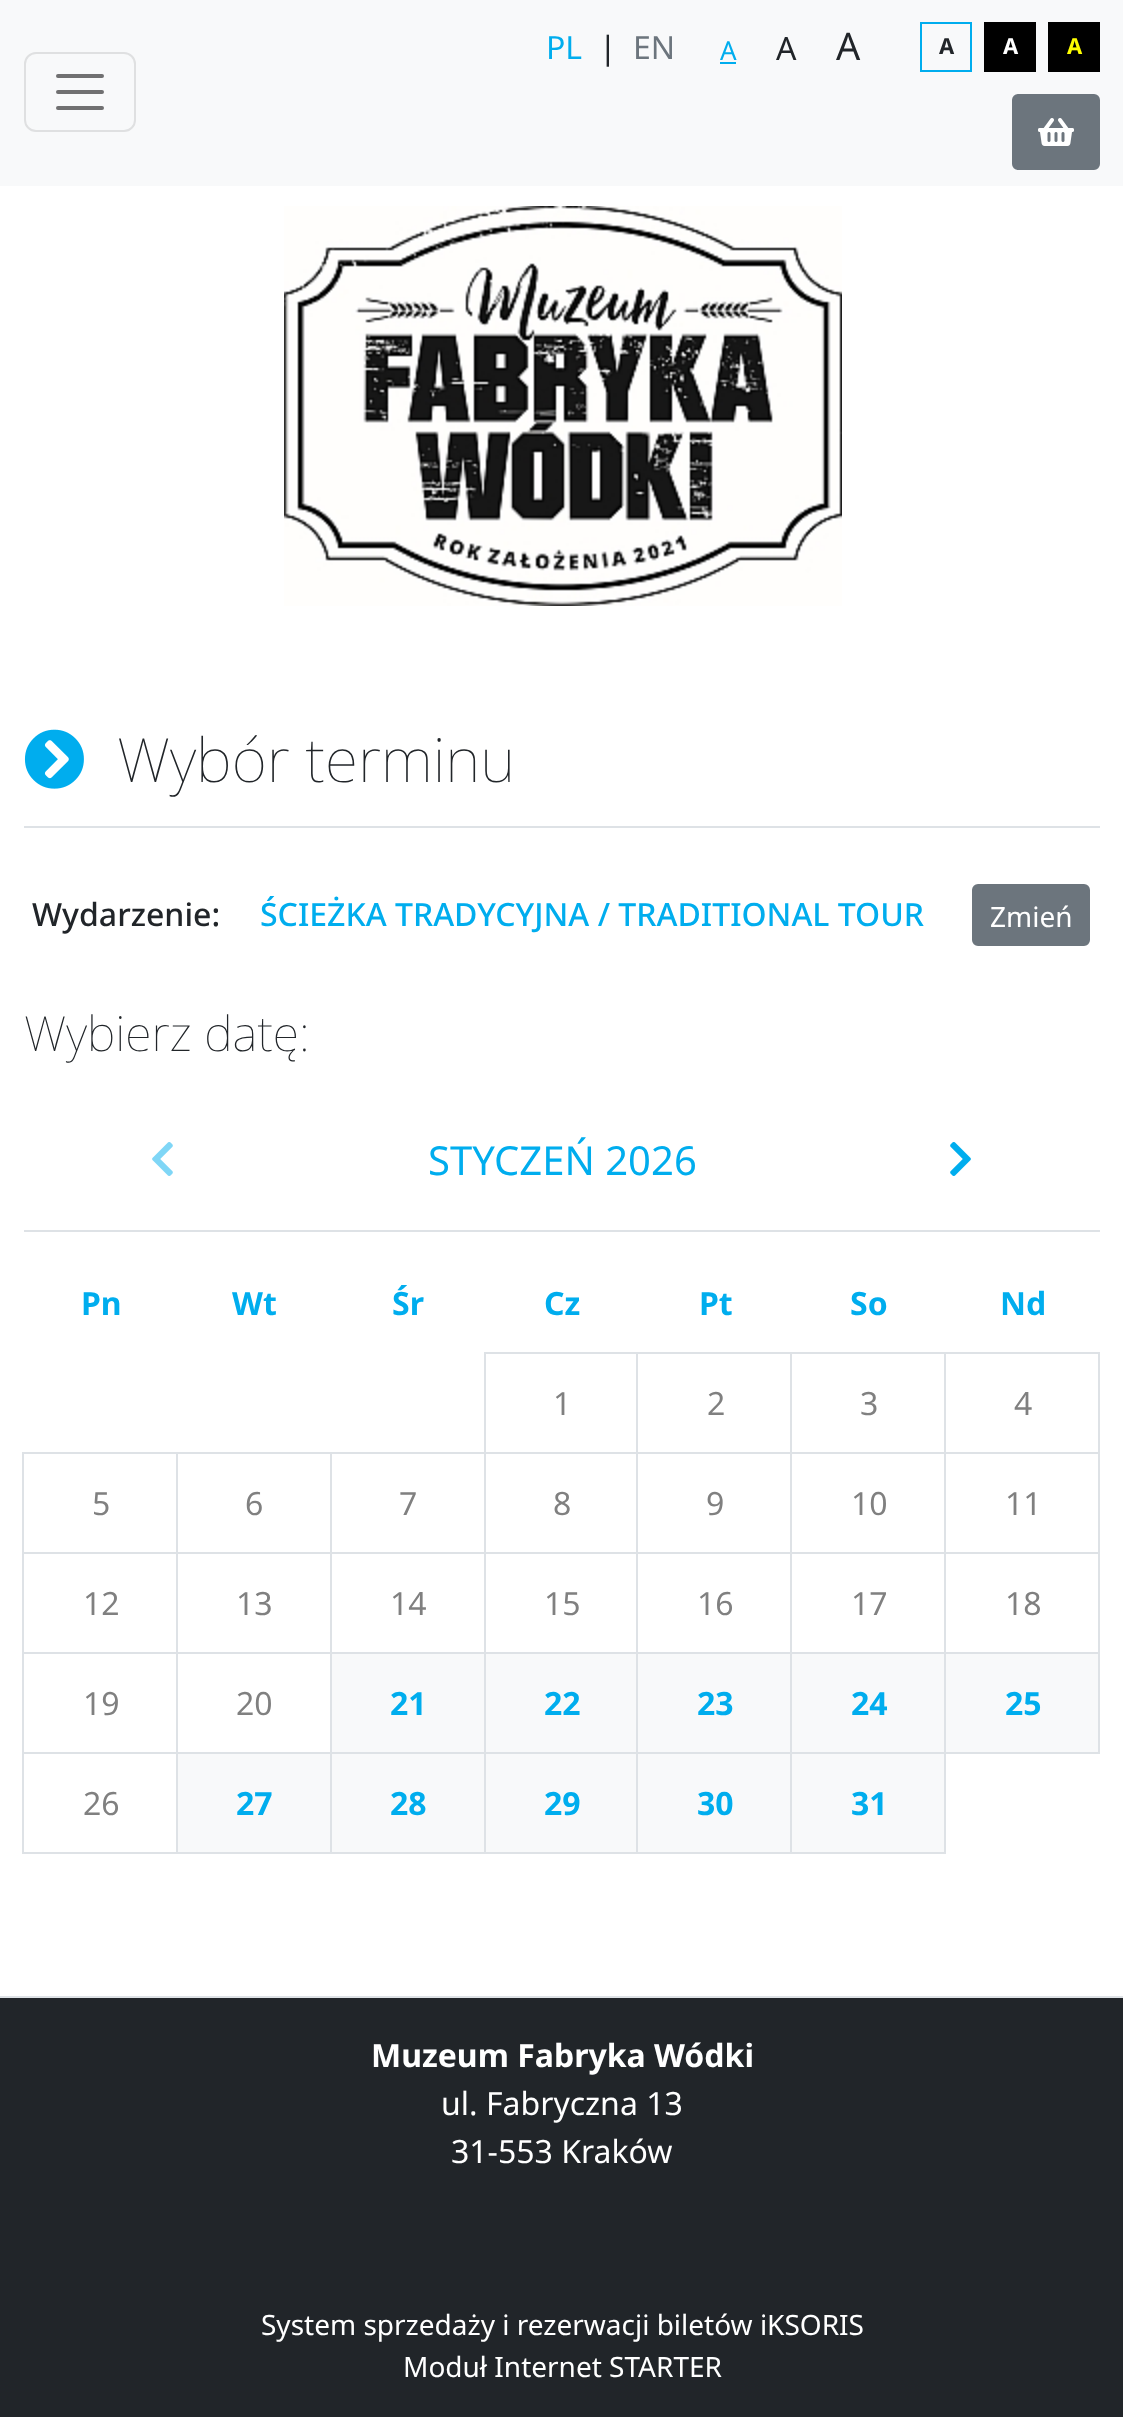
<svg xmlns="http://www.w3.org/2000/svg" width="1123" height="2417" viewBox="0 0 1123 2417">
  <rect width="100%" height="100%" fill="#ffffff"/>
  <rect x="0" y="0" width="1123" height="186" fill="#f8f9fa"/>
  <rect x="25" y="53" width="110" height="78" rx="11" fill="none" stroke="#dfe0e1" stroke-width="2"/>
  <path d="M58 76H102M58 92H102M58 108H102" fill="none" stroke="#707071" stroke-width="4" stroke-linecap="round"/>
  <text x="546" y="59" font-family="Noto Sans" font-size="32" fill="#00adee">PL</text>
  <text x="599" y="59" font-family="Noto Sans" font-size="32" fill="#212529">|</text>
  <text x="633" y="59" font-family="Noto Sans" font-size="32" fill="#6c757d">EN</text>
  <text x="720" y="60" font-family="Noto Sans" font-size="26" fill="#00adee">A</text>
  <rect x="720" y="62" width="16" height="2" fill="#00adee"/>
  <text x="776" y="60" font-family="Noto Sans" font-size="32" fill="#212529">A</text>
  <text x="836" y="60" font-family="Noto Sans" font-size="38" fill="#212529">A</text>
  <rect x="921" y="23" width="50" height="48" fill="none" stroke="#00adee" stroke-width="2"/>
  <text x="939" y="54" font-family="Noto Sans" font-size="22" font-weight="bold" fill="#212529">A</text>
  <rect x="984" y="22" width="52" height="50" fill="#000000"/>
  <text x="1003" y="54" font-family="Noto Sans" font-size="22" font-weight="bold" fill="#ffffff">A</text>
  <rect x="1048" y="22" width="52" height="50" fill="#000000"/>
  <text x="1067" y="54" font-family="Noto Sans" font-size="22" font-weight="bold" fill="#ffff00">A</text>
  <rect x="1013" y="95" width="86" height="74" rx="5" fill="#6c757d" stroke="#6c757d" stroke-width="2"/>
  <image x="1038" y="118" width="36" height="28" href="img1.png"/>
  <image x="284" y="206" width="558" height="400" href="img2.png"/>
  <rect x="24" y="826" width="1076" height="2" fill="#dee2e6"/>
  <image x="24" y="729" width="60" height="60" href="img3.png"/>
  <text x="117" y="782" font-family="Noto Sans" font-size="61" font-weight="100" fill="#212529">Wybór terminu</text>
  <text x="32" y="926" font-family="Noto Sans" font-size="32" font-weight="500" fill="#212529">Wydarzenie:</text>
  <text x="260" y="926" font-family="Noto Sans" font-size="32" font-weight="500" fill="#00adee">ŚCIEŻKA TRADYCYJNA / TRADITIONAL TOUR</text>
  <rect x="973" y="885" width="116" height="60" rx="5" fill="#6c757d" stroke="#6c757d" stroke-width="2"/>
  <text x="990" y="927" font-family="Noto Sans" font-size="28" fill="#ffffff">Zmień</text>
  <text x="24" y="1051" font-family="Noto Sans" font-size="48.5" font-weight="100" fill="#212529">Wybierz datę:</text>
  <rect x="24" y="1230" width="1076" height="2" fill="#dee2e6"/>
  <image x="152" y="1142" width="21" height="34" href="img4.png"/>
  <text x="428" y="1175" font-family="Noto Sans" font-size="40" fill="#00adee">STYCZEŃ 2026</text>
  <image x="950" y="1142" width="21" height="34" href="img5.png"/>
  <text x="81" y="1315" font-family="Noto Sans" font-size="32" font-weight="bold" fill="#00adee">Pn</text>
  <text x="232" y="1315" font-family="Noto Sans" font-size="32" font-weight="bold" fill="#00adee">Wt</text>
  <text x="392" y="1315" font-family="Noto Sans" font-size="32" font-weight="bold" fill="#00adee">Śr</text>
  <text x="544" y="1315" font-family="Noto Sans" font-size="32" font-weight="bold" fill="#00adee">Cz</text>
  <text x="699" y="1315" font-family="Noto Sans" font-size="32" font-weight="bold" fill="#00adee">Pt</text>
  <text x="850" y="1315" font-family="Noto Sans" font-size="32" font-weight="bold" fill="#00adee">So</text>
  <text x="1000" y="1315" font-family="Noto Sans" font-size="32" font-weight="bold" fill="#00adee">Nd</text>
  <rect x="485" y="1353" width="152" height="100" fill="none" stroke="#dee2e6" stroke-width="2"/>
  <text x="553" y="1415" font-family="Noto Sans" font-size="32" fill="#808080">1</text>
  <rect x="637" y="1353" width="154" height="100" fill="none" stroke="#dee2e6" stroke-width="2"/>
  <text x="707" y="1415" font-family="Noto Sans" font-size="32" fill="#808080">2</text>
  <rect x="791" y="1353" width="154" height="100" fill="none" stroke="#dee2e6" stroke-width="2"/>
  <text x="860" y="1415" font-family="Noto Sans" font-size="32" fill="#808080">3</text>
  <rect x="945" y="1353" width="154" height="100" fill="none" stroke="#dee2e6" stroke-width="2"/>
  <text x="1014" y="1415" font-family="Noto Sans" font-size="32" fill="#808080">4</text>
  <rect x="23" y="1453" width="154" height="100" fill="none" stroke="#dee2e6" stroke-width="2"/>
  <text x="92" y="1515" font-family="Noto Sans" font-size="32" fill="#808080">5</text>
  <rect x="177" y="1453" width="154" height="100" fill="none" stroke="#dee2e6" stroke-width="2"/>
  <text x="245" y="1515" font-family="Noto Sans" font-size="32" fill="#808080">6</text>
  <rect x="331" y="1453" width="154" height="100" fill="none" stroke="#dee2e6" stroke-width="2"/>
  <text x="399" y="1515" font-family="Noto Sans" font-size="32" fill="#808080">7</text>
  <rect x="485" y="1453" width="152" height="100" fill="none" stroke="#dee2e6" stroke-width="2"/>
  <text x="553" y="1515" font-family="Noto Sans" font-size="32" fill="#808080">8</text>
  <rect x="637" y="1453" width="154" height="100" fill="none" stroke="#dee2e6" stroke-width="2"/>
  <text x="706" y="1515" font-family="Noto Sans" font-size="32" fill="#808080">9</text>
  <rect x="791" y="1453" width="154" height="100" fill="none" stroke="#dee2e6" stroke-width="2"/>
  <text x="851" y="1515" font-family="Noto Sans" font-size="32" fill="#808080">10</text>
  <rect x="945" y="1453" width="154" height="100" fill="none" stroke="#dee2e6" stroke-width="2"/>
  <text x="1005" y="1515" font-family="Noto Sans" font-size="32" fill="#808080">11</text>
  <rect x="23" y="1553" width="154" height="100" fill="none" stroke="#dee2e6" stroke-width="2"/>
  <text x="83" y="1615" font-family="Noto Sans" font-size="32" fill="#808080">12</text>
  <rect x="177" y="1553" width="154" height="100" fill="none" stroke="#dee2e6" stroke-width="2"/>
  <text x="236" y="1615" font-family="Noto Sans" font-size="32" fill="#808080">13</text>
  <rect x="331" y="1553" width="154" height="100" fill="none" stroke="#dee2e6" stroke-width="2"/>
  <text x="390" y="1615" font-family="Noto Sans" font-size="32" fill="#808080">14</text>
  <rect x="485" y="1553" width="152" height="100" fill="none" stroke="#dee2e6" stroke-width="2"/>
  <text x="544" y="1615" font-family="Noto Sans" font-size="32" fill="#808080">15</text>
  <rect x="637" y="1553" width="154" height="100" fill="none" stroke="#dee2e6" stroke-width="2"/>
  <text x="697" y="1615" font-family="Noto Sans" font-size="32" fill="#808080">16</text>
  <rect x="791" y="1553" width="154" height="100" fill="none" stroke="#dee2e6" stroke-width="2"/>
  <text x="851" y="1615" font-family="Noto Sans" font-size="32" fill="#808080">17</text>
  <rect x="945" y="1553" width="154" height="100" fill="none" stroke="#dee2e6" stroke-width="2"/>
  <text x="1005" y="1615" font-family="Noto Sans" font-size="32" fill="#808080">18</text>
  <rect x="23" y="1653" width="154" height="100" fill="none" stroke="#dee2e6" stroke-width="2"/>
  <text x="83" y="1715" font-family="Noto Sans" font-size="32" fill="#808080">19</text>
  <rect x="177" y="1653" width="154" height="100" fill="none" stroke="#dee2e6" stroke-width="2"/>
  <text x="236" y="1715" font-family="Noto Sans" font-size="32" fill="#808080">20</text>
  <rect x="332" y="1654" width="152" height="98" fill="#f8f9fa"/>
  <rect x="331" y="1653" width="154" height="100" fill="none" stroke="#dee2e6" stroke-width="2"/>
  <text x="390" y="1715" font-family="Noto Sans" font-size="32" font-weight="bold" fill="#00adee">21</text>
  <rect x="486" y="1654" width="150" height="98" fill="#f8f9fa"/>
  <rect x="485" y="1653" width="152" height="100" fill="none" stroke="#dee2e6" stroke-width="2"/>
  <text x="544" y="1715" font-family="Noto Sans" font-size="32" font-weight="bold" fill="#00adee">22</text>
  <rect x="638" y="1654" width="152" height="98" fill="#f8f9fa"/>
  <rect x="637" y="1653" width="154" height="100" fill="none" stroke="#dee2e6" stroke-width="2"/>
  <text x="697" y="1715" font-family="Noto Sans" font-size="32" font-weight="bold" fill="#00adee">23</text>
  <rect x="792" y="1654" width="152" height="98" fill="#f8f9fa"/>
  <rect x="791" y="1653" width="154" height="100" fill="none" stroke="#dee2e6" stroke-width="2"/>
  <text x="851" y="1715" font-family="Noto Sans" font-size="32" font-weight="bold" fill="#00adee">24</text>
  <rect x="946" y="1654" width="152" height="98" fill="#f8f9fa"/>
  <rect x="945" y="1653" width="154" height="100" fill="none" stroke="#dee2e6" stroke-width="2"/>
  <text x="1005" y="1715" font-family="Noto Sans" font-size="32" font-weight="bold" fill="#00adee">25</text>
  <rect x="23" y="1753" width="154" height="100" fill="none" stroke="#dee2e6" stroke-width="2"/>
  <text x="83" y="1815" font-family="Noto Sans" font-size="32" fill="#808080">26</text>
  <rect x="178" y="1754" width="152" height="98" fill="#f8f9fa"/>
  <rect x="177" y="1753" width="154" height="100" fill="none" stroke="#dee2e6" stroke-width="2"/>
  <text x="236" y="1815" font-family="Noto Sans" font-size="32" font-weight="bold" fill="#00adee">27</text>
  <rect x="332" y="1754" width="152" height="98" fill="#f8f9fa"/>
  <rect x="331" y="1753" width="154" height="100" fill="none" stroke="#dee2e6" stroke-width="2"/>
  <text x="390" y="1815" font-family="Noto Sans" font-size="32" font-weight="bold" fill="#00adee">28</text>
  <rect x="486" y="1754" width="150" height="98" fill="#f8f9fa"/>
  <rect x="485" y="1753" width="152" height="100" fill="none" stroke="#dee2e6" stroke-width="2"/>
  <text x="544" y="1815" font-family="Noto Sans" font-size="32" font-weight="bold" fill="#00adee">29</text>
  <rect x="638" y="1754" width="152" height="98" fill="#f8f9fa"/>
  <rect x="637" y="1753" width="154" height="100" fill="none" stroke="#dee2e6" stroke-width="2"/>
  <text x="697" y="1815" font-family="Noto Sans" font-size="32" font-weight="bold" fill="#00adee">30</text>
  <rect x="792" y="1754" width="152" height="98" fill="#f8f9fa"/>
  <rect x="791" y="1753" width="154" height="100" fill="none" stroke="#dee2e6" stroke-width="2"/>
  <text x="851" y="1815" font-family="Noto Sans" font-size="32" font-weight="bold" fill="#00adee">31</text>
  <rect x="0" y="1998" width="1123" height="419" fill="#212529"/>
  <rect x="0" y="1996" width="1123" height="2" fill="#dee2e6"/>
  <text x="371" y="2067" font-family="Noto Sans" font-size="32" font-weight="bold" fill="#ffffff">Muzeum Fabryka Wódki</text>
  <text x="441" y="2115" font-family="Noto Sans" font-size="32" fill="#ffffff">ul. Fabryczna 13</text>
  <text x="451" y="2163" font-family="Noto Sans" font-size="32" fill="#ffffff">31-553 Kraków</text>
  <text x="261" y="2335" font-family="Noto Sans" font-size="28" fill="#ffffff">System sprzedaży i rezerwacji biletów iKSORIS</text>
  <text x="403" y="2377" font-family="Noto Sans" font-size="28" fill="#ffffff">Moduł Internet STARTER</text>
</svg>
